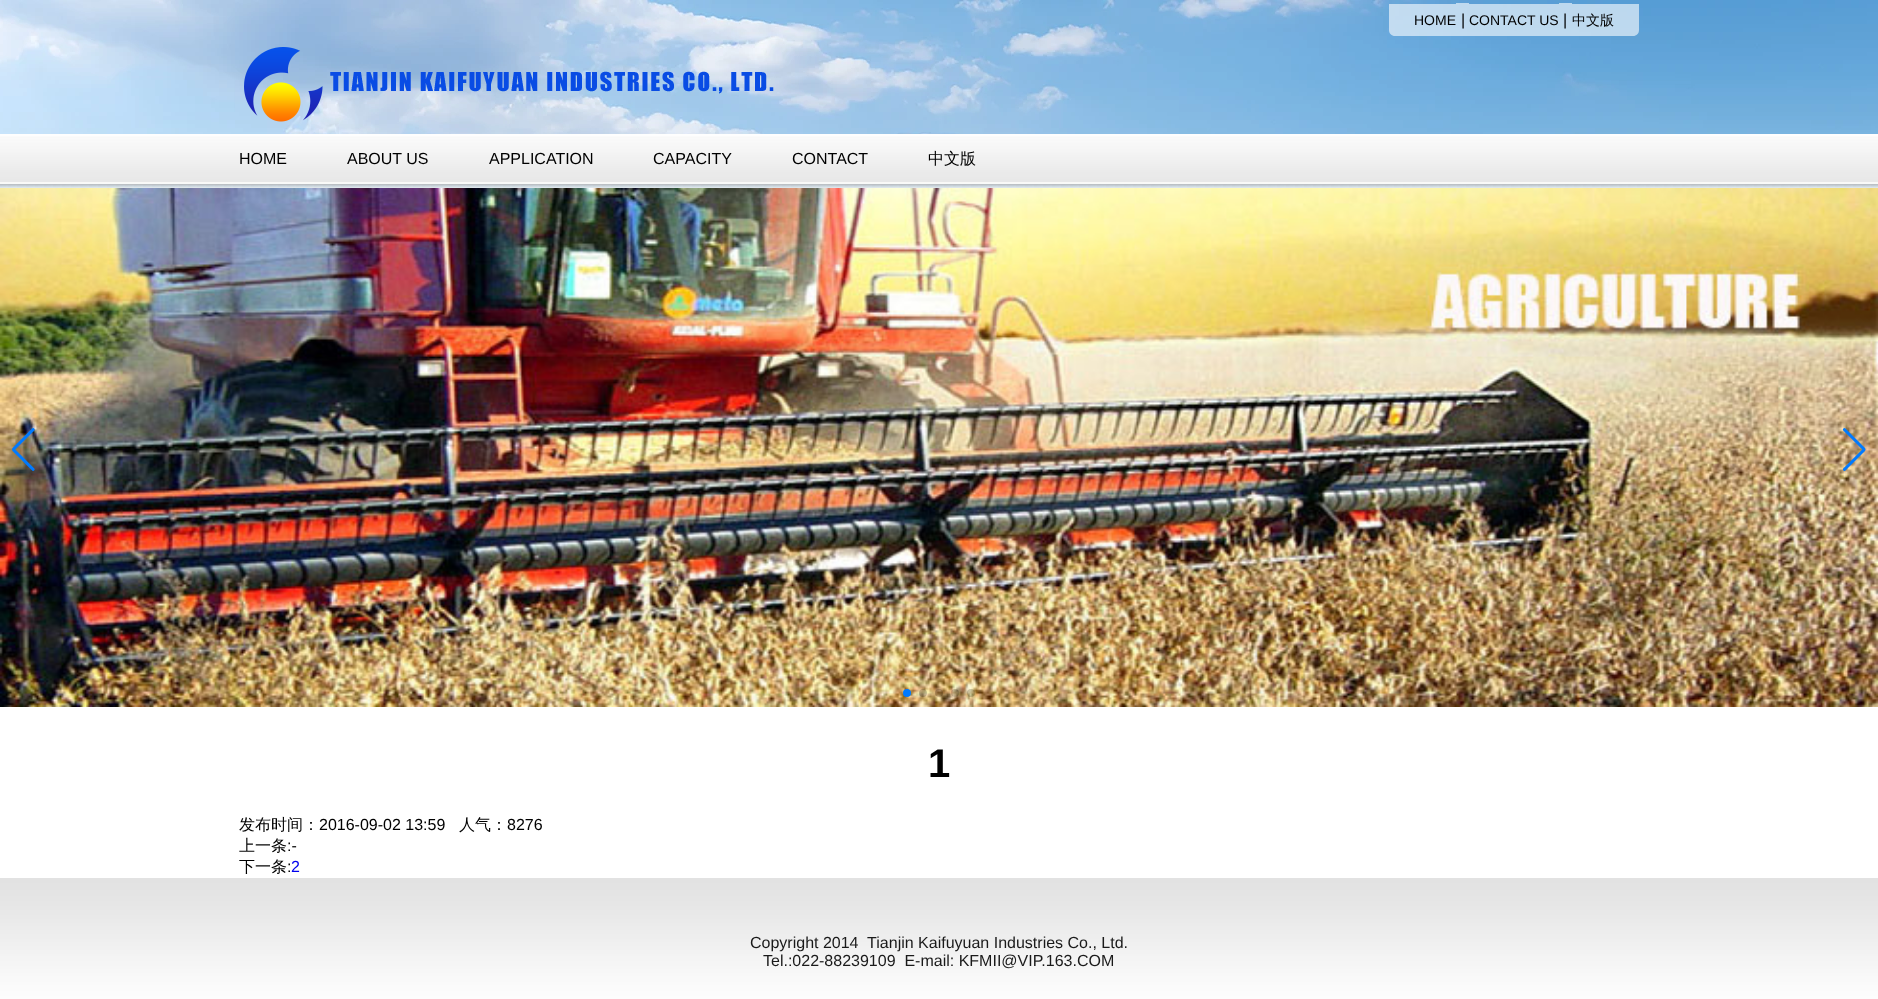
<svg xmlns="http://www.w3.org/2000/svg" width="1878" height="999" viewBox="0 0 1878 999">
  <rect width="100%" height="100%" fill="#ffffff"/>
  <image x="0" y="0" width="1878" height="134" href="img1.png"/>
  <path d="M1389 4H1456V36H1395C1391.5 36 1389 33.5 1389 30Z" fill="#ffffff" fill-opacity="0.6"/>
  <text x="1414" y="25" font-family="Liberation Sans" font-size="14" fill="#000000">HOME</text>
  <rect x="1456" y="3" width="13" height="33" fill="#ffffff" fill-opacity="0.6"/>
  <text x="1461" y="25" font-family="Liberation Sans" font-size="16" fill="#000000">|</text>
  <rect x="1469" y="4" width="90" height="32" fill="#ffffff" fill-opacity="0.6"/>
  <text x="1469" y="25" font-family="Liberation Sans" font-size="14" fill="#000000">CONTACT US</text>
  <rect x="1559" y="3" width="13" height="33" fill="#ffffff" fill-opacity="0.6"/>
  <text x="1563" y="25" font-family="Liberation Sans" font-size="16" fill="#000000">|</text>
  <path d="M1572 4H1639V30C1639 33.5 1636.5 36 1633 36H1572Z" fill="#ffffff" fill-opacity="0.6"/>
  <text x="1572" y="25" font-family="WenQuanYi Zen Hei" font-size="14" font-weight="500" fill="#000000">中文版</text>
  <image x="244" y="47" width="530" height="75" href="img2.png"/>
  <image x="0" y="134" width="1878" height="54" href="img3.png"/>
  <text x="239" y="164" font-family="Liberation Sans" font-size="16" fill="#000000">HOME</text>
  <text x="347" y="164" font-family="Liberation Sans" font-size="16" fill="#000000">ABOUT US</text>
  <text x="489" y="164" font-family="Liberation Sans" font-size="16" fill="#000000">APPLICATION</text>
  <text x="653" y="164" font-family="Liberation Sans" font-size="16" fill="#000000">CAPACITY</text>
  <text x="792" y="164" font-family="Liberation Sans" font-size="16" fill="#000000">CONTACT</text>
  <text x="928" y="164" font-family="WenQuanYi Zen Hei" font-size="16" font-weight="500" fill="#000000">中文版</text>
  <image x="0" y="188" width="1878" height="519" href="img4.png"/>
  <image x="12" y="428" width="23" height="43" href="img5.png"/>
  <image x="1842" y="428" width="24" height="43" href="img6.png"/>
  <circle cx="907" cy="693" r="4" fill="#007aff"/>
  <circle cx="923" cy="693" r="4" fill="#000000" fill-opacity="0.2"/>
  <circle cx="939" cy="693" r="4" fill="#000000" fill-opacity="0.2"/>
  <circle cx="955" cy="693" r="4" fill="#000000" fill-opacity="0.2"/>
  <circle cx="971" cy="693" r="4" fill="#000000" fill-opacity="0.2"/>
  <text x="928" y="777" font-family="Liberation Sans" font-size="40" font-weight="bold" fill="#000000">1</text>
  <text x="239" y="830" font-family="WenQuanYi Zen Hei" font-size="16" font-weight="500" fill="#000000">发布时间：</text>
  <text x="319" y="830" font-family="Liberation Sans" font-size="16" fill="#000000">2016-09-02 13:59</text>
  <text x="459" y="830" font-family="WenQuanYi Zen Hei" font-size="16" font-weight="500" fill="#000000">人气：</text>
  <text x="507" y="830" font-family="Liberation Sans" font-size="16" fill="#000000">8276</text>
  <text x="239" y="851" font-family="WenQuanYi Zen Hei" font-size="16" font-weight="500" fill="#000000">上一条</text>
  <text x="287" y="851" font-family="Liberation Sans" font-size="16" fill="#000000">:-</text>
  <text x="239" y="872" font-family="WenQuanYi Zen Hei" font-size="16" font-weight="500" fill="#000000">下一条</text>
  <text x="287" y="872" font-family="Liberation Sans" font-size="16" fill="#000000">:</text>
  <text x="291" y="872" font-family="Liberation Sans" font-size="16" fill="#0000ee">2</text>
  <image x="0" y="878" width="1878" height="121" href="img7.png"/>
  <text x="750" y="948" font-family="Liberation Sans" font-size="16" fill="#1a1a1a" xml:space="preserve">Copyright 2014  Tianjin Kaifuyuan Industries Co., Ltd.</text>
  <text x="763" y="966" font-family="Liberation Sans" font-size="16" fill="#1a1a1a" xml:space="preserve">Tel.:022-88239109  E-mail: KFMII@VIP.163.COM</text>
</svg>
